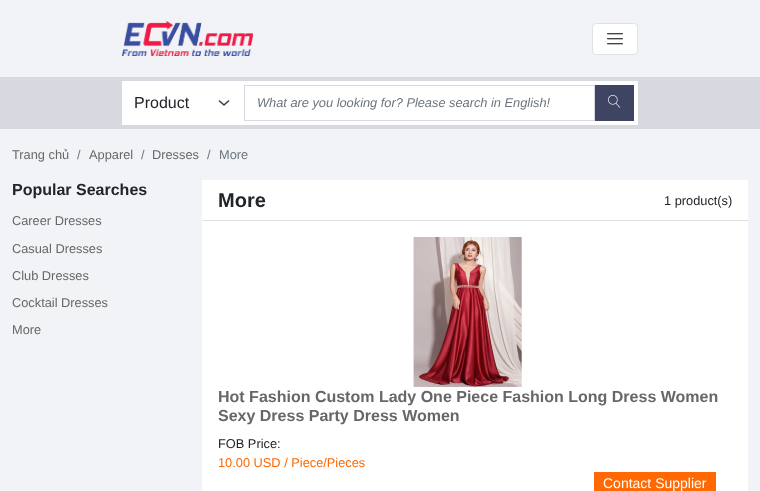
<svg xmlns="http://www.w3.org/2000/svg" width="760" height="491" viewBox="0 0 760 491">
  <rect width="100%" height="100%" fill="#f2f3f7"/>
  <image x="122" y="21" width="131" height="35" href="img1.png"/>
  <rect x="592.5" y="23.5" width="45" height="31" rx="3.5" fill="#ffffff" stroke="#dee2e6"/>
  <image x="607" y="33" width="16" height="12" href="img2.png"/>
  <rect x="0" y="77" width="760" height="52" fill="#d8d9e0"/>
  <rect x="122" y="81" width="516" height="44" fill="#ffffff"/>
  <path d="M219.5 101L224 105L228.5 101" fill="none" stroke="#343a40" stroke-width="1.5" stroke-linecap="round" stroke-linejoin="round"/>
  <text x="134" y="108" font-family="Liberation Sans" font-size="16" fill="#212529">Product</text>
  <rect x="244.5" y="85.5" width="350" height="35" fill="none" stroke="#d8d9e0"/>
  <text x="257" y="107" font-family="Liberation Sans" font-size="12.8" font-style="italic" fill="#6c757d">What are you looking for? Please search in English!</text>
  <rect x="595" y="85" width="39" height="36" fill="#3f4462"/>
  <image x="608" y="95" width="13" height="13" href="img3.png"/>
  <text x="12" y="159" font-family="Liberation Sans" font-size="12.8" fill="#676767">Trang chủ</text>
  <text x="77" y="159" font-family="Liberation Sans" font-size="12.8" fill="#6c757d">/</text>
  <text x="89" y="159" font-family="Liberation Sans" font-size="12.8" fill="#676767">Apparel</text>
  <text x="141" y="159" font-family="Liberation Sans" font-size="12.8" fill="#6c757d">/</text>
  <text x="152" y="159" font-family="Liberation Sans" font-size="12.8" fill="#676767">Dresses</text>
  <text x="207" y="159" font-family="Liberation Sans" font-size="12.8" fill="#6c757d">/</text>
  <text x="219" y="159" font-family="Liberation Sans" font-size="12.8" fill="#6c757d">More</text>
  <text x="12" y="195" font-family="Liberation Sans" font-size="16" font-weight="bold" fill="#212529">Popular Searches</text>
  <text x="12" y="225" font-family="Liberation Sans" font-size="12.8" fill="#676767">Career Dresses</text>
  <text x="12" y="253" font-family="Liberation Sans" font-size="12.8" fill="#676767">Casual Dresses</text>
  <text x="12" y="280" font-family="Liberation Sans" font-size="12.8" fill="#676767">Club Dresses</text>
  <text x="12" y="307" font-family="Liberation Sans" font-size="12.8" fill="#676767">Cocktail Dresses</text>
  <text x="12" y="334" font-family="Liberation Sans" font-size="12.8" fill="#676767">More</text>
  <rect x="202" y="180" width="546" height="311" fill="#ffffff"/>
  <rect x="202" y="220" width="546" height="1" fill="#dfdfdf"/>
  <text x="218" y="207" font-family="Liberation Sans" font-size="20" font-weight="bold" fill="#212529">More</text>
  <text x="664" y="205" font-family="Liberation Sans" font-size="12.8" fill="#212529">1 product(s)</text>
  <image x="413" y="237" width="109" height="150" href="img4.png"/>
  <text x="218" y="402" font-family="Liberation Sans" font-size="16" font-weight="bold" fill="#676767">Hot Fashion Custom Lady One Piece Fashion Long Dress Women</text>
  <text x="218" y="421" font-family="Liberation Sans" font-size="16" font-weight="bold" fill="#676767">Sexy Dress Party Dress Women</text>
  <text x="218" y="448" font-family="Liberation Sans" font-size="12.8" fill="#212529">FOB Price:</text>
  <text x="218" y="467" font-family="Liberation Sans" font-size="12.8" fill="#ff6802">10.00 USD / Piece/Pieces</text>
  <rect x="594" y="472" width="122" height="19" fill="#ff6802"/>
  <text x="603" y="488" font-family="Liberation Sans" font-size="14" fill="#ffffff">Contact Supplier</text>
</svg>
